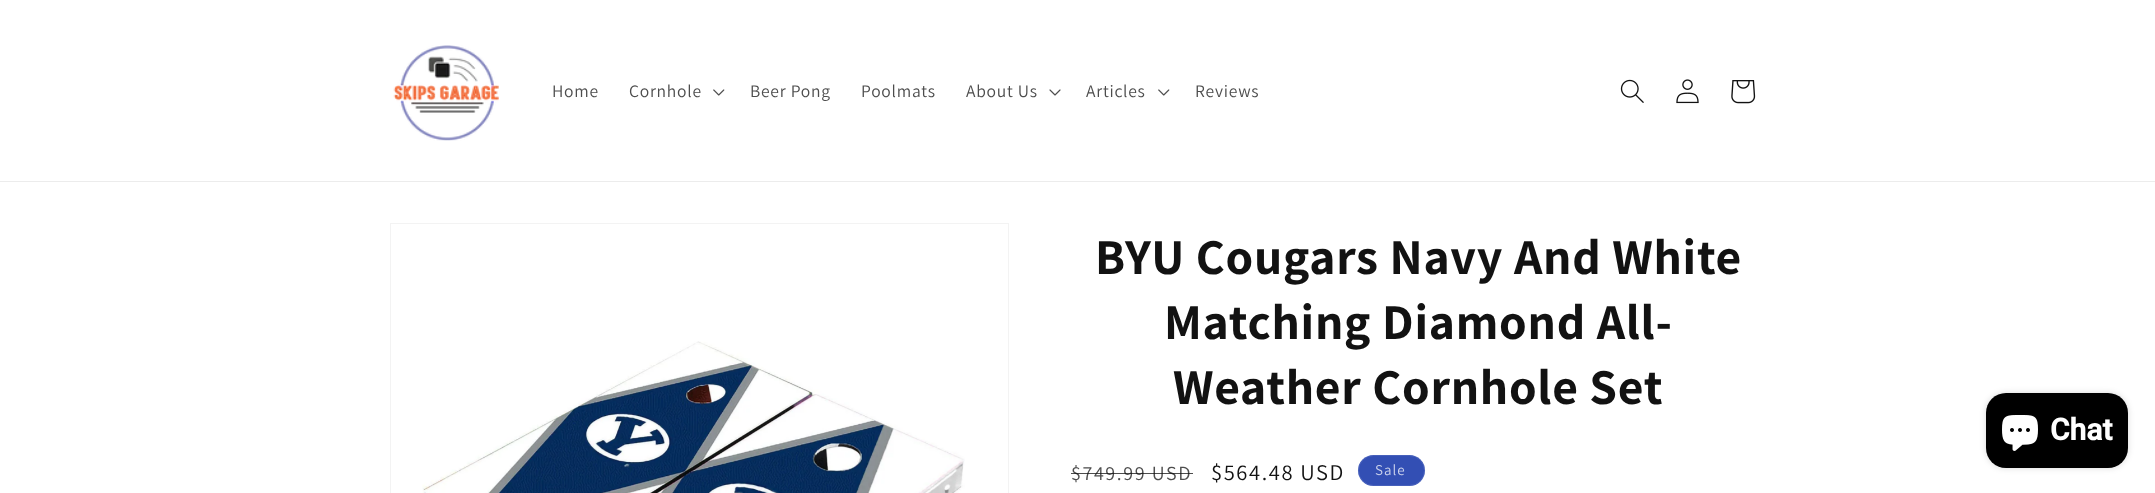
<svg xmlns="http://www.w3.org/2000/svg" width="2155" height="493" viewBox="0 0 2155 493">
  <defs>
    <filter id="blur1" x="-50%" y="-200%" width="200%" height="500%"><feGaussianBlur stdDeviation="3"/></filter>
  </defs>
  <rect width="100%" height="100%" fill="#ffffff"/>
  <rect x="0" y="181" width="2155" height="1" fill="#ececec"/>
  <image x="393" y="45" width="106" height="96" href="img1.png"/>
  <text x="552" y="97" font-family="Assistant" font-size="17.5" letter-spacing="0.75" fill="#4d4d4d">Home</text>
  <text x="629" y="97" font-family="Assistant" font-size="17.5" letter-spacing="0.75" fill="#4d4d4d">Cornhole</text>
  <image x="713" y="89" width="12" height="7" href="img2.png"/>
  <text x="750" y="97" font-family="Assistant" font-size="17.5" letter-spacing="0.75" fill="#4d4d4d">Beer Pong</text>
  <text x="861" y="97" font-family="Assistant" font-size="17.5" letter-spacing="0.75" fill="#4d4d4d">Poolmats</text>
  <text x="966" y="97" font-family="Assistant" font-size="17.5" letter-spacing="0.75" fill="#4d4d4d">About Us</text>
  <image x="1049" y="89" width="12" height="7" href="img3.png"/>
  <text x="1086" y="97" font-family="Assistant" font-size="17.5" letter-spacing="0.75" fill="#4d4d4d">Articles</text>
  <image x="1158" y="89" width="12" height="7" href="img2.png"/>
  <text x="1195" y="97" font-family="Assistant" font-size="17.5" letter-spacing="0.75" fill="#4d4d4d">Reviews</text>
  <image x="1620" y="79" width="24" height="24" href="img4.png"/>
  <image x="1676" y="79" width="23" height="25" href="img5.png"/>
  <image x="1731" y="80" width="25" height="24" href="img6.png"/>
  <rect x="390.5" y="223.5" width="618" height="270" fill="none" stroke="#f3f3f3"/>
  <image x="422" y="341" width="543" height="152" href="img7.png"/>
  <text x="1095" y="274" font-family="Assistant" font-size="50" font-weight="bold" letter-spacing="0.75" fill="#121212">BYU Cougars Navy And White</text>
  <text x="1164" y="339" font-family="Assistant" font-size="50" font-weight="bold" letter-spacing="0.75" fill="#121212">Matching Diamond All-</text>
  <text x="1173" y="404" font-family="Assistant" font-size="50" font-weight="bold" letter-spacing="0.75" fill="#121212">Weather Cornhole Set</text>
  <text x="1071" y="480" font-family="Assistant" font-size="20" letter-spacing="1.6" fill="#4d4d4d">$749.99 USD</text>
  <rect x="1071" y="473" width="122" height="1" fill="#121212" fill-opacity="0.75"/>
  <text x="1211" y="480" font-family="Assistant" font-size="22.5" letter-spacing="1.6" fill="#121212">$564.48 USD</text>
  <rect x="1358" y="455" width="67" height="31" rx="15.5" fill="#334fb4"/>
  <rect x="1358.5" y="455.5" width="66" height="30" rx="15" fill="none" stroke="#ffffff" stroke-opacity="0.1"/>
  <text x="1375" y="475" font-family="Assistant" font-size="15" letter-spacing="1" fill="#ccd3ec">Sale</text>
  <rect x="1986" y="393" width="142" height="75" rx="20" fill="#000000" fill-opacity="0.15" filter="url(#blur1)"/>
  <rect x="1986" y="393" width="142" height="75" rx="20" fill="#000000"/>
  <image x="2002" y="415" width="36" height="36" href="img8.png"/>
  <text x="2050" y="440" font-family="Roboto" font-size="30" font-weight="bold" fill="#ffffff">Chat</text>
</svg>
